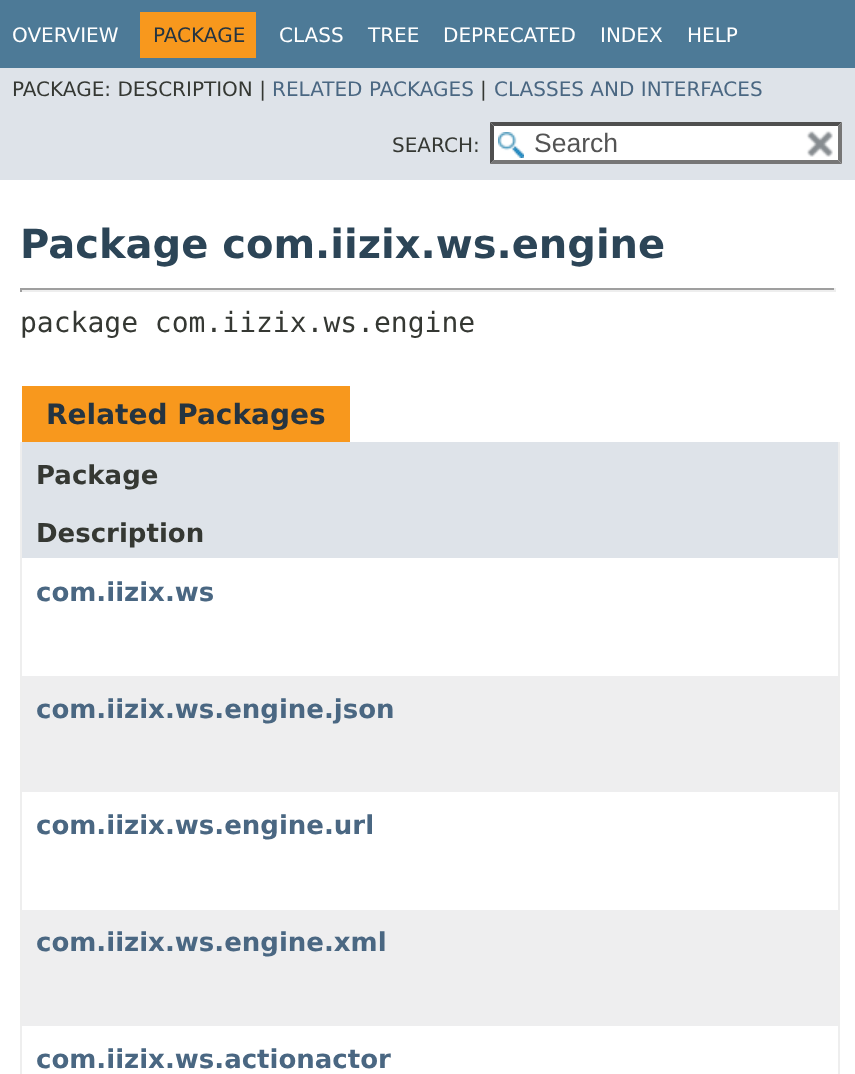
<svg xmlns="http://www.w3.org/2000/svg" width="855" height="1074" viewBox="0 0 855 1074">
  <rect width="100%" height="100%" fill="#ffffff"/>
  <rect x="0" y="0" width="855" height="68" fill="#4d7a97"/>
  <text x="12" y="42" font-family="DejaVu Sans" font-size="20" fill="#ffffff">OVERVIEW</text>
  <rect x="140" y="12" width="116" height="46" fill="#f8981d"/>
  <text x="153" y="42" font-family="DejaVu Sans" font-size="20" fill="#253441">PACKAGE</text>
  <text x="279" y="42" font-family="DejaVu Sans" font-size="20" fill="#ffffff">CLASS</text>
  <text x="368" y="42" font-family="DejaVu Sans" font-size="20" fill="#ffffff">TREE</text>
  <text x="443" y="42" font-family="DejaVu Sans" font-size="20" fill="#ffffff">DEPRECATED</text>
  <text x="600" y="42" font-family="DejaVu Sans" font-size="20" fill="#ffffff">INDEX</text>
  <text x="687" y="42" font-family="DejaVu Sans" font-size="20" fill="#ffffff">HELP</text>
  <rect x="0" y="68" width="855" height="112" fill="#dee3e9"/>
  <text x="12" y="96" font-family="DejaVu Sans" font-size="20" fill="#353833">PACKAGE: DESCRIPTION |</text>
  <text x="272" y="96" font-family="DejaVu Sans" font-size="20" fill="#4a6782">RELATED PACKAGES</text>
  <text x="480" y="96" font-family="DejaVu Sans" font-size="20" fill="#353833">|</text>
  <text x="494" y="96" font-family="DejaVu Sans" font-size="20" fill="#4a6782">CLASSES AND INTERFACES</text>
  <text x="392" y="152" font-family="DejaVu Sans" font-size="20" fill="#353833">SEARCH:</text>
  <rect x="490" y="122" width="352" height="42" fill="#ffffff"/>
  <image x="498" y="132" width="26" height="26" href="img1.png"/>
  <path d="M490 122H842L838 126H494Z" fill="#4f4f4f"/>
  <path d="M842 122V164L838 160V126Z" fill="#767676"/>
  <path d="M842 164H490L494 160H838Z" fill="#767676"/>
  <path d="M490 164V122L494 126V160Z" fill="#4f4f4f"/>
  <text x="534" y="152" font-family="Liberation Sans" font-size="26.5" fill="#545454">Search</text>
  <image x="806" y="130" width="27" height="27" href="img2.png"/>
  <text x="20" y="258" font-family="DejaVu Sans" font-size="40" font-weight="bold" fill="#2c4557">Package com.iizix.ws.engine</text>
  <rect x="20" y="288" width="816" height="2" fill="#9f9f9f"/>
  <rect x="834" y="288" width="2" height="4" fill="#eeeeee"/>
  <rect x="20" y="290" width="816" height="2" fill="#eeeeee"/>
  <rect x="20" y="288" width="2" height="4" fill="#9f9f9f"/>
  <text x="20" y="332" font-family="DejaVu Sans Mono" font-size="28" fill="#353833">package com.iizix.ws.engine</text>
  <rect x="22" y="386" width="328" height="56" fill="#f8981d"/>
  <text x="46" y="424" font-family="DejaVu Sans" font-size="28" font-weight="bold" fill="#253441">Related Packages</text>
  <rect x="838" y="442" width="2" height="632" fill="#eeeeee"/>
  <rect x="20" y="442" width="2" height="632" fill="#eeeeee"/>
  <rect x="22" y="442" width="816" height="116" fill="#dee3e9"/>
  <text x="36" y="484" font-family="DejaVu Sans" font-size="26" font-weight="bold" fill="#353833">Package</text>
  <text x="36" y="542" font-family="DejaVu Sans" font-size="26" font-weight="bold" fill="#353833">Description</text>
  <text x="36" y="601" font-family="DejaVu Sans" font-size="26" font-weight="bold" fill="#4a6782">com.iizix.ws</text>
  <rect x="22" y="676" width="816" height="116" fill="#eeeeef"/>
  <text x="36" y="718" font-family="DejaVu Sans" font-size="26" font-weight="bold" fill="#4a6782">com.iizix.ws.engine.json</text>
  <text x="36" y="834" font-family="DejaVu Sans" font-size="26" font-weight="bold" fill="#4a6782">com.iizix.ws.engine.url</text>
  <rect x="22" y="910" width="816" height="116" fill="#eeeeef"/>
  <text x="36" y="951" font-family="DejaVu Sans" font-size="26" font-weight="bold" fill="#4a6782">com.iizix.ws.engine.xml</text>
  <text x="36" y="1068" font-family="DejaVu Sans" font-size="26" font-weight="bold" fill="#4a6782">com.iizix.ws.actionactor</text>
</svg>
